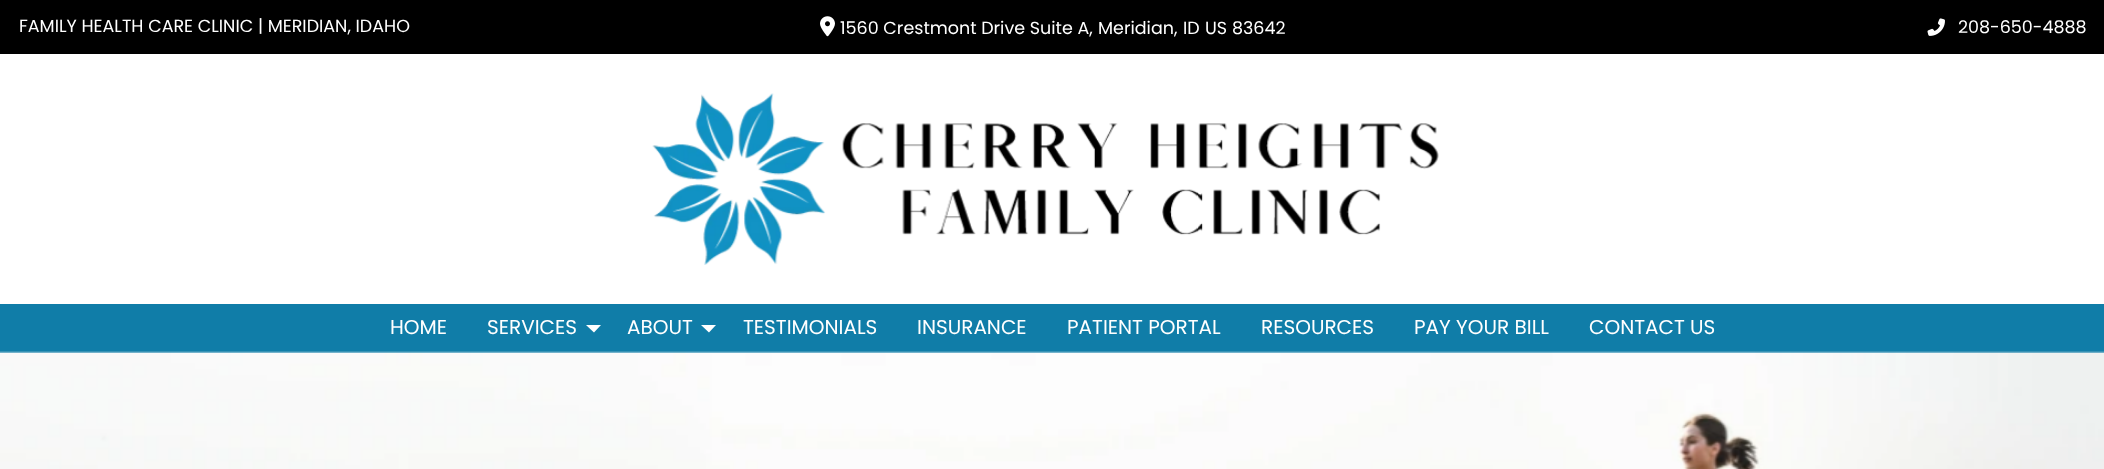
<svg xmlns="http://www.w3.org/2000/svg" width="2104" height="469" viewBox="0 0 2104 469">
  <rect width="100%" height="100%" fill="#ffffff"/>
  <rect x="0" y="0" width="2104" height="54" fill="#000000"/>
  <text x="19" y="32" font-family="Poppins" font-size="17.5" fill="#ffffff">FAMILY HEALTH CARE CLINIC | MERIDIAN, IDAHO</text>
  <image x="820" y="16" width="15" height="21" href="img1.png"/>
  <text x="840" y="34" font-family="Poppins" font-size="17.5" fill="#ffffff">1560 Crestmont Drive Suite A,</text>
  <text x="1098" y="34" font-family="Poppins" font-size="17.5" fill="#ffffff">Meridian,</text>
  <text x="1183" y="34" font-family="Poppins" font-size="17.5" fill="#ffffff">ID</text>
  <text x="1205" y="34" font-family="Poppins" font-size="17.5" fill="#ffffff">US</text>
  <text x="1232" y="34" font-family="Poppins" font-size="17.5" fill="#ffffff">83642</text>
  <image x="1927" y="18" width="18" height="18" href="img2.png"/>
  <text x="1958" y="33" font-family="Poppins" font-size="17.5" fill="#ffffff">208-650-4888</text>
  <image x="652" y="93" width="787" height="172" href="img3.png"/>
  <rect x="0" y="304" width="2104" height="49" fill="#107da8"/>
  <text x="390" y="334" font-family="Poppins" font-size="20" fill="#ffffff">HOME</text>
  <text x="487" y="334" font-family="Poppins" font-size="20" fill="#ffffff">SERVICES</text>
  <path d="M586 325H601L594 332.5Z" fill="#ffffff"/>
  <text x="627" y="334" font-family="Poppins" font-size="20" fill="#ffffff">ABOUT</text>
  <path d="M701 325H716L709 332.5Z" fill="#ffffff"/>
  <text x="743" y="334" font-family="Poppins" font-size="20" fill="#ffffff">TESTIMONIALS</text>
  <text x="917" y="334" font-family="Poppins" font-size="20" fill="#ffffff">INSURANCE</text>
  <text x="1067" y="334" font-family="Poppins" font-size="20" fill="#ffffff">PATIENT PORTAL</text>
  <text x="1261" y="334" font-family="Poppins" font-size="20" fill="#ffffff">RESOURCES</text>
  <text x="1414" y="334" font-family="Poppins" font-size="20" fill="#ffffff">PAY YOUR BILL</text>
  <text x="1589" y="334" font-family="Poppins" font-size="20" fill="#ffffff">CONTACT US</text>
  <image x="0" y="351" width="2104" height="118" href="img4.png"/>
</svg>
